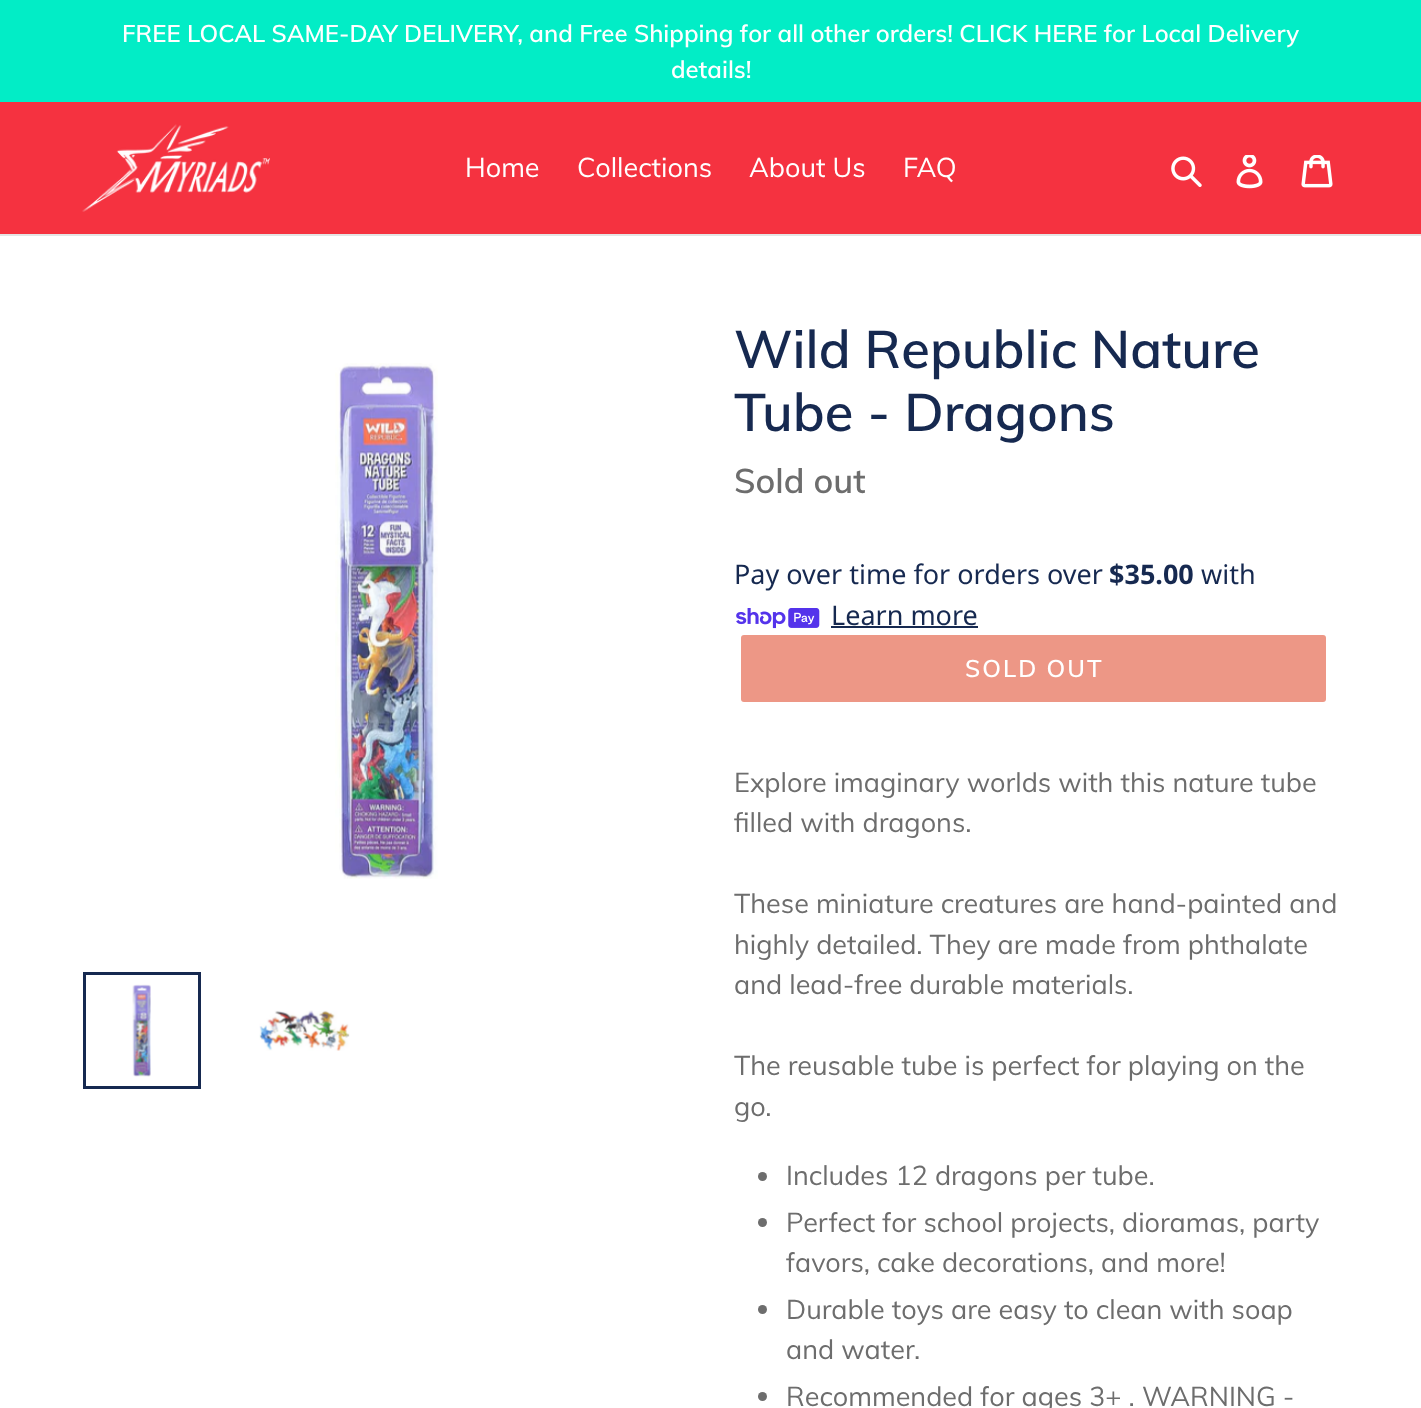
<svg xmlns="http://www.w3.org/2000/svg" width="1421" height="1408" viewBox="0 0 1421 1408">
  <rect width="100%" height="100%" fill="#ffffff"/>
  <rect x="0" y="0" width="1421" height="102" fill="#02edc6"/>
  <text x="122" y="42" font-family="Muli" font-size="24" font-weight="600" fill="#ffffff">FREE LOCAL SAME-DAY DELIVERY, and Free Shipping for all other orders! CLICK HERE for Local Delivery</text>
  <text x="671" y="78" font-family="Muli" font-size="24" font-weight="600" fill="#ffffff">details!</text>
  <rect x="0" y="102" width="1421" height="132" fill="#f53240"/>
  <rect x="0" y="234" width="1421" height="2" fill="#e4e4e4"/>
  <image x="82" y="124" width="188" height="88" href="img1.png"/>
  <text x="465" y="177" font-family="Muli" font-size="27" fill="#ffffff">Home</text>
  <text x="577" y="177" font-family="Muli" font-size="27" fill="#ffffff">Collections</text>
  <text x="749" y="177" font-family="Muli" font-size="27" fill="#ffffff">About Us</text>
  <text x="903" y="177" font-family="Muli" font-size="27" fill="#ffffff">FAQ</text>
  <image x="1171" y="156" width="31" height="31" href="img2.png"/>
  <image x="1236" y="155" width="27" height="34" href="img3.png"/>
  <image x="1301" y="155" width="32" height="33" href="img4.png"/>
  <image x="335" y="363" width="103" height="516" href="img5.png"/>
  <rect x="84.5" y="973.5" width="115" height="114" fill="none" stroke="#162950" stroke-width="3"/>
  <image x="132" y="984" width="19" height="93" href="img6.png"/>
  <image x="259" y="1010" width="91" height="41" href="img7.png"/>
  <text x="734" y="368" font-family="Muli" font-size="52.5" font-weight="600" fill="#162950">Wild Republic Nature</text>
  <text x="734" y="431" font-family="Muli" font-size="52.5" font-weight="600" fill="#162950">Tube - Dragons</text>
  <text x="734" y="493" font-family="Muli" font-size="34" font-weight="600" fill="#6d6d6d">Sold out</text>
  <text x="734" y="584" font-family="Noto Sans" font-size="27" fill="#162950">Pay over time for orders over</text>
  <text x="1109" y="584" font-family="Noto Sans" font-size="27" font-weight="bold" fill="#162950">$35.00</text>
  <text x="1201" y="584" font-family="Noto Sans" font-size="27" fill="#162950">with</text>
  <image x="736" y="608" width="84" height="21" href="img8.png"/>
  <text x="831" y="625" font-family="Noto Sans" font-size="27" fill="#162950">Learn more</text>
  <rect x="831" y="626" width="147" height="2" fill="#162950"/>
  <rect x="741" y="635" width="585" height="67" rx="3" fill="#ed9786"/>
  <text x="965" y="677" font-family="Muli" font-size="24" font-weight="600" letter-spacing="2" fill="#ffffff">SOLD OUT</text>
  <text x="734" y="792" font-family="Muli" font-size="27" fill="#6d6d6d">Explore imaginary worlds with this nature tube</text>
  <text x="734" y="832" font-family="Muli" font-size="27" fill="#6d6d6d">filled with dragons.</text>
  <text x="734" y="913" font-family="Muli" font-size="27" fill="#6d6d6d">These miniature creatures are hand-painted and</text>
  <text x="734" y="954" font-family="Muli" font-size="27" fill="#6d6d6d">highly detailed. They are made from phthalate</text>
  <text x="734" y="994" font-family="Muli" font-size="27" fill="#6d6d6d">and lead-free durable materials.</text>
  <text x="734" y="1075" font-family="Muli" font-size="27" fill="#6d6d6d">The reusable tube is perfect for playing on the</text>
  <text x="734" y="1116" font-family="Muli" font-size="27" fill="#6d6d6d">go.</text>
  <circle cx="762.5" cy="1176.5" r="4.5" fill="#6d6d6d"/>
  <text x="786" y="1185" font-family="Muli" font-size="27" fill="#6d6d6d">Includes 12 dragons per tube.</text>
  <circle cx="762.5" cy="1222.5" r="4.5" fill="#6d6d6d"/>
  <text x="786" y="1232" font-family="Muli" font-size="27" fill="#6d6d6d">Perfect for school projects, dioramas, party</text>
  <text x="786" y="1272" font-family="Muli" font-size="27" fill="#6d6d6d">favors, cake decorations, and more!</text>
  <circle cx="762.5" cy="1309.5" r="4.5" fill="#6d6d6d"/>
  <text x="786" y="1319" font-family="Muli" font-size="27" fill="#6d6d6d">Durable toys are easy to clean with soap</text>
  <text x="786" y="1359" font-family="Muli" font-size="27" fill="#6d6d6d">and water.</text>
  <circle cx="762.5" cy="1396.5" r="4.5" fill="#6d6d6d"/>
  <text x="786" y="1406" font-family="Muli" font-size="27" fill="#6d6d6d">Recommended for ages 3+ . WARNING -</text>
</svg>
